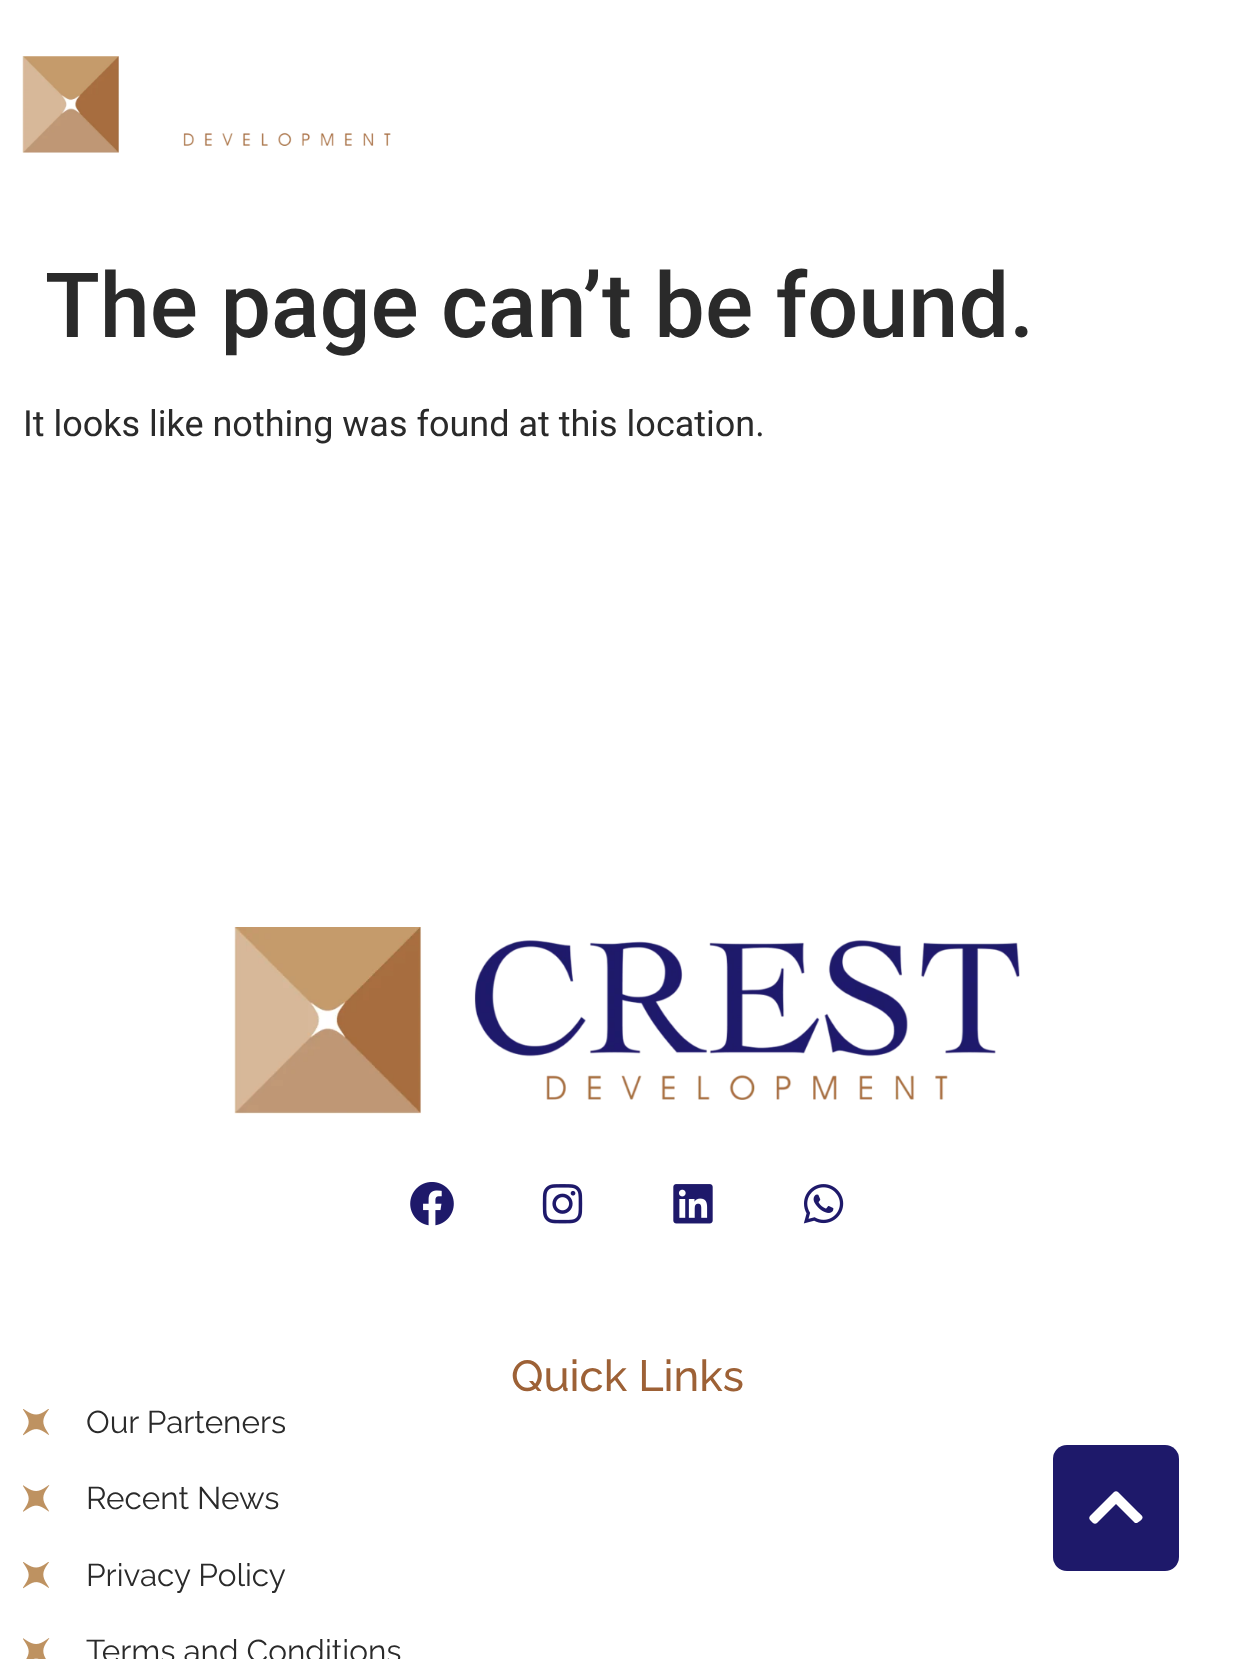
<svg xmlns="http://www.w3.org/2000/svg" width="1252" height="1659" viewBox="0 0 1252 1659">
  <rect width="100%" height="100%" fill="#ffffff"/>
  <image x="22" y="56" width="369" height="97" href="img1.png"/>
  <text x="45" y="337" font-family="Roboto" font-size="90" font-weight="500" fill="#2a2a2a">The page can’t be found.</text>
  <text x="23" y="436" font-family="Roboto" font-size="36" fill="#2a2a2a">It looks like nothing was found at this location.</text>
  <image x="234" y="927" width="786" height="187" href="img2.png"/>
  <image x="410" y="1182" width="44" height="44" href="img3.png"/>
  <image x="542" y="1184" width="41" height="40" href="img4.png"/>
  <image x="673" y="1184" width="40" height="40" href="img5.png"/>
  <image x="803" y="1184" width="41" height="40" href="img6.png"/>
  <text x="511" y="1391" font-family="Raleway" font-size="43.5" font-weight="500" fill="#9d6136">Quick Links</text>
  <image x="23" y="1409" width="26" height="27" href="img7.png"/>
  <text x="86" y="1433" font-family="Raleway" font-size="31.5" fill="#2a2a2a">Our Parteners</text>
  <image x="23" y="1485" width="27" height="27" href="img8.png"/>
  <text x="86" y="1509" font-family="Raleway" font-size="31.5" fill="#2a2a2a">Recent News</text>
  <image x="23" y="1562" width="26" height="27" href="img7.png"/>
  <text x="86" y="1586" font-family="Raleway" font-size="31.5" fill="#2a2a2a">Privacy Policy</text>
  <image x="23" y="1638" width="27" height="21" href="img9.png"/>
  <text x="86" y="1662" font-family="Raleway" font-size="31.5" fill="#2a2a2a">Terms and Conditions</text>
  <rect x="1053" y="1445" width="126" height="126" rx="14" fill="#1e196a"/>
  <path d="M1118 1492L1138 1512C1142 1516 1145 1517 1140 1521L1137 1523H1135L1116 1504L1097 1523C1096 1524 1094 1524 1093 1523L1090 1520C1089 1519 1089 1517 1090 1516L1114 1492C1115 1491 1117 1491 1118 1492Z" fill="#ffffff"/>
</svg>
